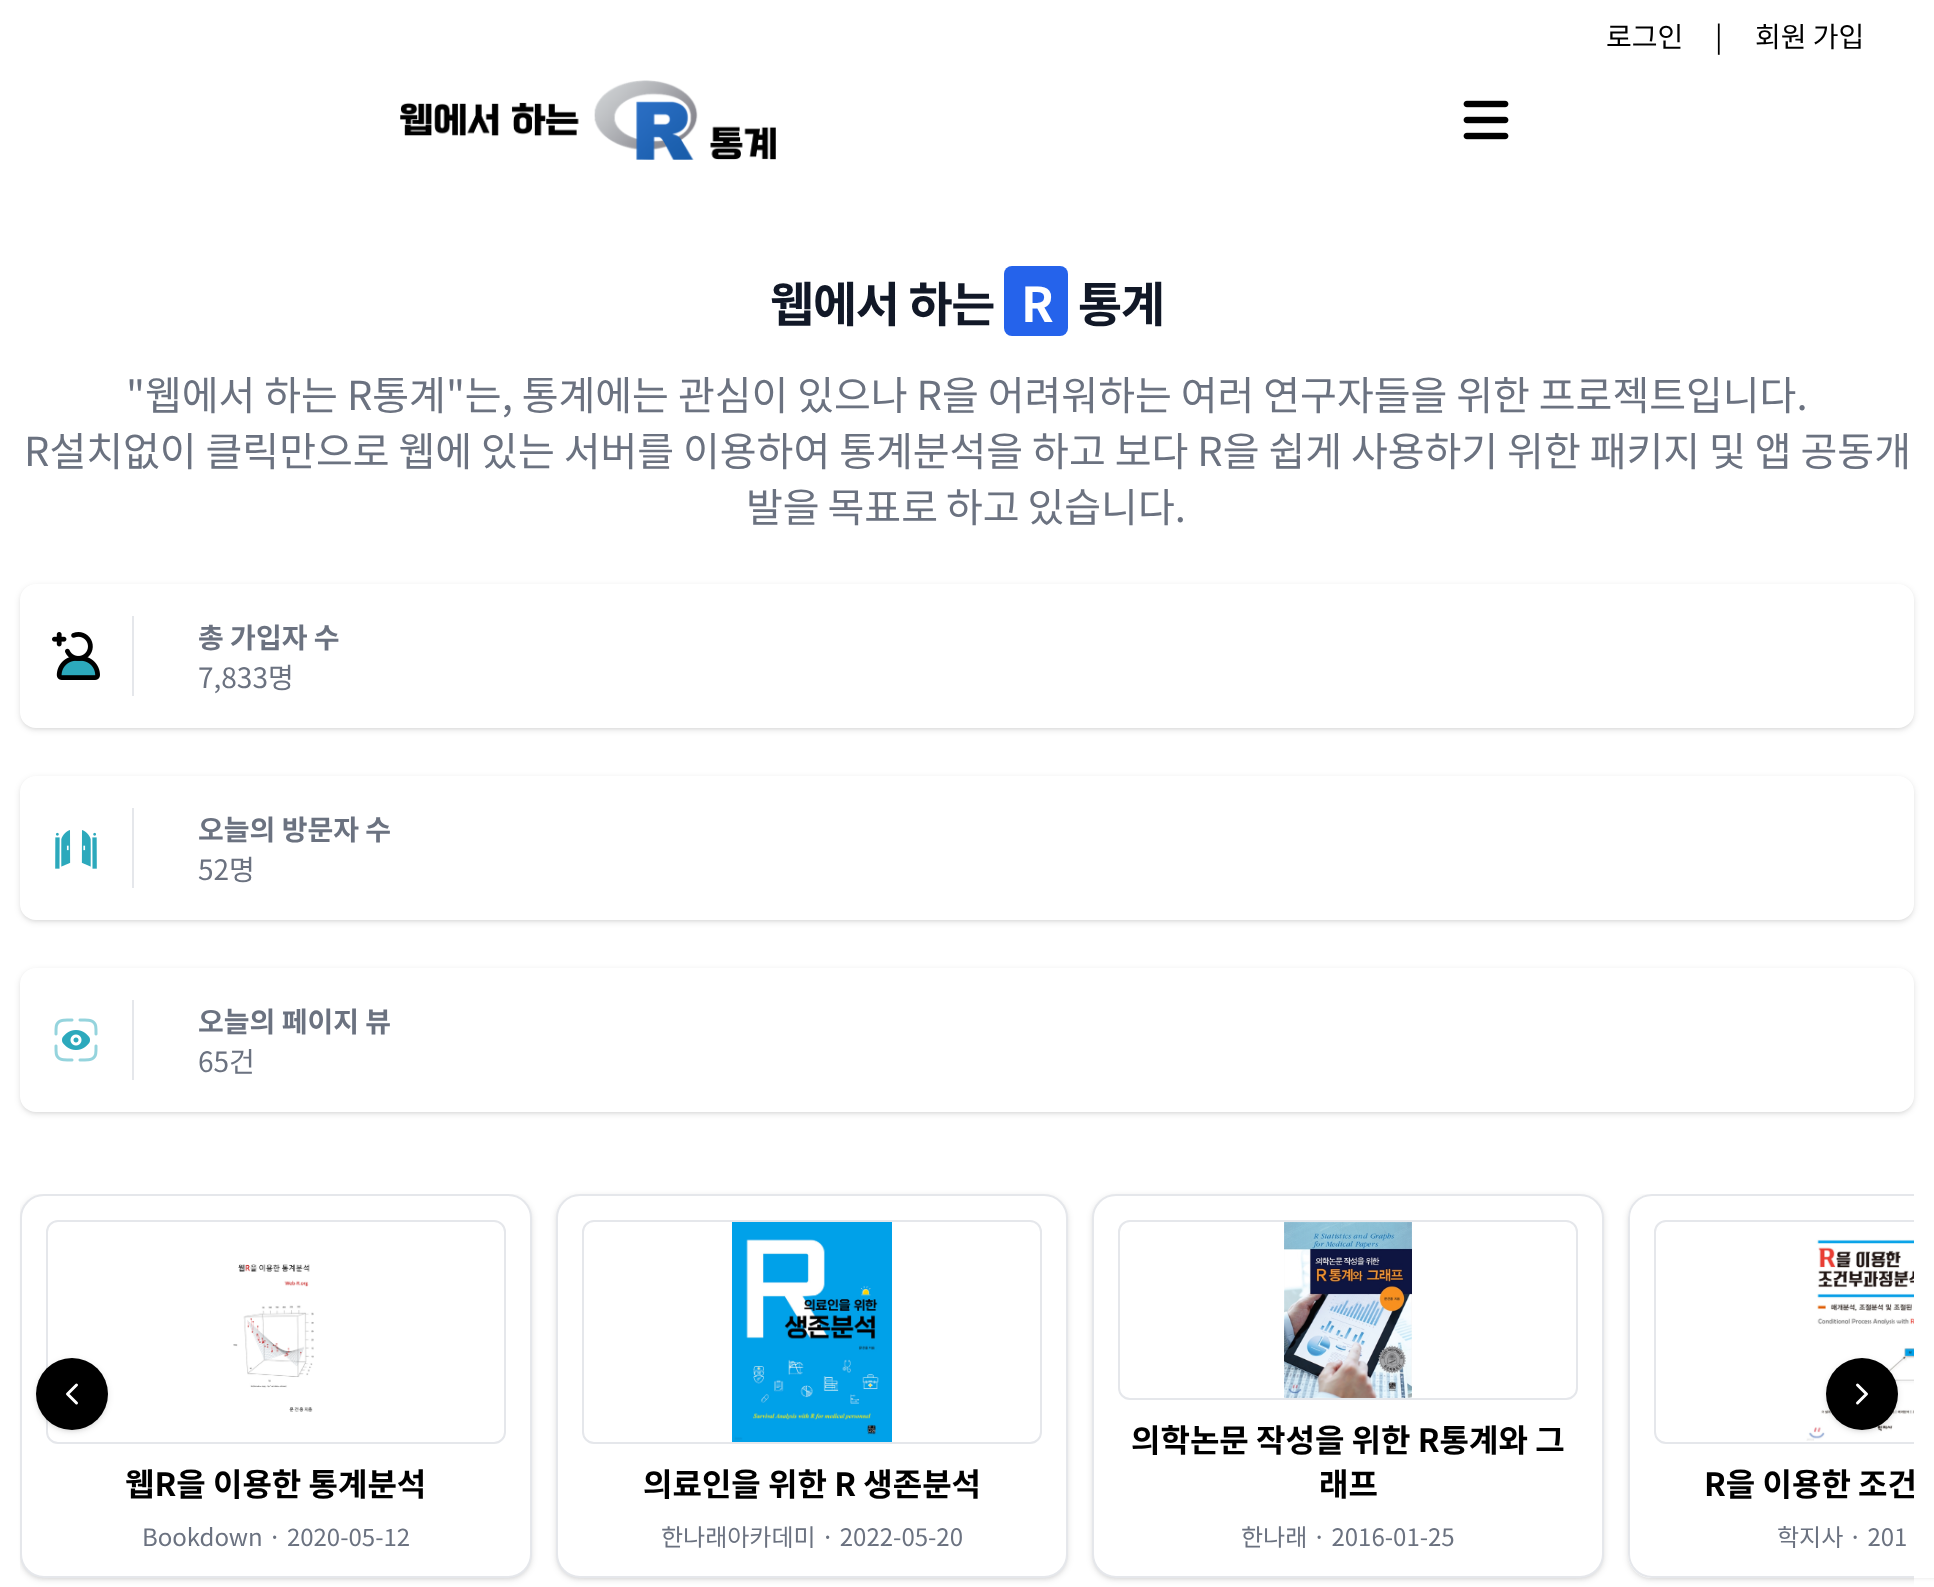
<svg xmlns="http://www.w3.org/2000/svg" width="1934" height="1587" viewBox="0 0 1934 1587">
  <defs>
    <filter id="blur1" x="-50%" y="-200%" width="200%" height="500%"><feGaussianBlur stdDeviation="2"/></filter>
    <filter id="blur2" x="-50%" y="-200%" width="200%" height="500%"><feGaussianBlur stdDeviation="3"/></filter>
    <clipPath id="clip1"><rect x="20" y="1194" width="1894" height="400"/></clipPath>
    <clipPath id="clip2"><path d="M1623 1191H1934V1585H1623ZM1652 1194H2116C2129.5 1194 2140 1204.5 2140 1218V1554C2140 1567.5 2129.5 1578 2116 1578H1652C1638.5 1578 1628 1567.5 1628 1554V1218C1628 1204.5 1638.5 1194 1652 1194Z" clip-rule="evenodd"/></clipPath>
    <clipPath id="clip3"><rect x="20" y="1194" width="1894" height="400"/></clipPath>
  </defs>
  <rect width="100%" height="100%" fill="#ffffff"/>
  <text x="1606" y="47" font-family="Noto Sans KR" font-size="28" fill="#000000">로그인</text>
  <text x="1715" y="47" font-family="Noto Sans KR" font-size="28" fill="#000000">|</text>
  <text x="1755" y="47" font-family="Noto Sans KR" font-size="28" fill="#000000">회원 가입</text>
  <image x="400" y="80" width="376" height="80" href="img1.png"/>
  <image x="1463" y="100" width="46" height="40" href="img2.png"/>
  <text x="770" y="322" font-family="Noto Sans KR" font-size="48" font-weight="bold" letter-spacing="-1.25" fill="#111827">웹에서 하는</text>
  <rect x="1004" y="266" width="64" height="70" rx="8" fill="#2563eb"/>
  <text x="1021" y="322" font-family="Noto Sans KR" font-size="48" font-weight="bold" letter-spacing="-1.25" fill="#ffffff">R</text>
  <text x="1078" y="322" font-family="Noto Sans KR" font-size="48" font-weight="bold" letter-spacing="-1.25" fill="#111827">통계</text>
  <text x="126" y="410" font-family="Noto Sans KR" font-size="40" fill="#6b7280">"웹에서 하는 R통계"는, 통계에는 관심이 있으나 R을 어려워하는 여러 연구자들을 위한 프로젝트입니다.</text>
  <text x="24" y="466" font-family="Noto Sans KR" font-size="40" fill="#6b7280">R설치없이 클릭만으로 웹에 있는 서버를 이용하여 통계분석을 하고 보다 R을 쉽게 사용하기 위한 패키지 및 앱 공동개</text>
  <text x="746" y="522" word-spacing="-1" font-family="Noto Sans KR" font-size="40" fill="#6b7280">발을 목표로 하고 있습니다.</text>
  <rect x="22" y="588" width="1890" height="140" rx="14" fill="#000000" fill-opacity="0.1" filter="url(#blur1)"/>
  <rect x="20" y="586" width="1894" height="144" rx="16" fill="#000000" fill-opacity="0.1" filter="url(#blur2)"/>
  <rect x="20" y="584" width="1894" height="144" rx="16" fill="#ffffff"/>
  <image x="52" y="632" width="48" height="48" href="img3.png"/>
  <rect x="132" y="616" width="2" height="80" fill="#e5e7eb"/>
  <text x="198" y="648" font-family="Noto Sans KR" font-size="28" font-weight="bold" fill="#6b7280">총 가입자 수</text>
  <text x="198" y="688" font-family="Noto Sans KR" font-size="28" fill="#6b7280">7,833명</text>
  <rect x="22" y="780" width="1890" height="140" rx="14" fill="#000000" fill-opacity="0.1" filter="url(#blur1)"/>
  <rect x="20" y="778" width="1894" height="144" rx="16" fill="#000000" fill-opacity="0.1" filter="url(#blur2)"/>
  <rect x="20" y="776" width="1894" height="144" rx="16" fill="#ffffff"/>
  <image x="55" y="830" width="42" height="39" href="img4.png"/>
  <rect x="132" y="808" width="2" height="80" fill="#e5e7eb"/>
  <text x="198" y="840" font-family="Noto Sans KR" font-size="28" font-weight="bold" fill="#6b7280">오늘의 방문자 수</text>
  <text x="198" y="880" font-family="Noto Sans KR" font-size="28" fill="#6b7280">52명</text>
  <rect x="22" y="972" width="1890" height="140" rx="14" fill="#000000" fill-opacity="0.1" filter="url(#blur1)"/>
  <rect x="20" y="970" width="1894" height="144" rx="16" fill="#000000" fill-opacity="0.1" filter="url(#blur2)"/>
  <rect x="20" y="968" width="1894" height="144" rx="16" fill="#ffffff"/>
  <image x="54" y="1018" width="44" height="44" href="img5.png"/>
  <rect x="132" y="1000" width="2" height="80" fill="#e5e7eb"/>
  <text x="198" y="1032" font-family="Noto Sans KR" font-size="28" font-weight="bold" fill="#6b7280">오늘의 페이지 뷰</text>
  <text x="198" y="1072" font-family="Noto Sans KR" font-size="28" fill="#6b7280">65건</text>
  <rect x="22" y="1198" width="508" height="380" rx="22" fill="#000000" fill-opacity="0.1" filter="url(#blur1)"/>
  <g clip-path="url(#clip1)">
    <rect x="20" y="1196" width="512" height="384" rx="24" fill="#000000" fill-opacity="0.1" filter="url(#blur2)"/>
  </g>
  <rect x="21" y="1195" width="510" height="382" rx="23" fill="#ffffff" stroke="#e5e7eb" stroke-width="2"/>
  <rect x="47" y="1221" width="458" height="222" rx="11" fill="none" stroke="#e5e7eb" stroke-width="2"/>
  <rect x="38" y="1362" width="68" height="68" rx="34" fill="#000000" fill-opacity="0.1" filter="url(#blur1)"/>
  <rect x="36" y="1360" width="72" height="72" rx="36" fill="#000000" fill-opacity="0.1" filter="url(#blur2)"/>
  <circle cx="72" cy="1394" r="36" fill="#000000"/>
  <path d="M76.5 1385L67.5 1394L76.5 1403" fill="none" stroke="#ffffff" stroke-width="3" stroke-linecap="round" stroke-linejoin="round"/>
  <g clip-path="url(#clip2)">
    <rect x="1630" y="1198" width="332" height="380" rx="22" fill="#000000" fill-opacity="0.1" filter="url(#blur1)"/>
  </g>
  <g clip-path="url(#clip1)">
    <rect x="1628" y="1196" width="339" height="384" rx="24" fill="#000000" fill-opacity="0.1" filter="url(#blur2)"/>
  </g>
  <path d="M1652 1194H1914V1578H1652C1638.5 1578 1628 1567.5 1628 1554V1218C1628 1204.5 1638.5 1194 1652 1194Z" fill="#ffffff"/>
  <g clip-path="url(#clip3)">
    <rect x="1629" y="1195" width="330" height="382" rx="23" fill="none" stroke="#e5e7eb" stroke-width="2"/>
    <rect x="1655" y="1221" width="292" height="222" rx="11" fill="none" stroke="#e5e7eb" stroke-width="2"/>
  </g>
  <image x="1806" y="1239" width="108" height="202" href="img9.png"/>
  <rect x="1828" y="1362" width="68" height="68" rx="34" fill="#000000" fill-opacity="0.1" filter="url(#blur1)"/>
  <rect x="1826" y="1360" width="72" height="72" rx="36" fill="#000000" fill-opacity="0.1" filter="url(#blur2)"/>
  <circle cx="1862" cy="1394" r="36" fill="#000000"/>
  <path d="M1857.5 1385L1866.5 1394L1857.5 1403" fill="none" stroke="#ffffff" stroke-width="3" stroke-linecap="round" stroke-linejoin="round"/>
  <image x="233" y="1264" width="81" height="148" href="img6.png"/>
  <text x="125" y="1496" font-family="Noto Sans KR" font-size="32" font-weight="bold" fill="#000000">웹R을 이용한 통계분석</text>
  <text x="142" y="1546" font-family="Noto Sans KR" font-size="24" fill="#6b7280">Bookdown · 2020-05-12</text>
  <rect x="558" y="1198" width="508" height="380" rx="22" fill="#000000" fill-opacity="0.1" filter="url(#blur1)"/>
  <rect x="556" y="1196" width="512" height="384" rx="24" fill="#000000" fill-opacity="0.1" filter="url(#blur2)"/>
  <rect x="557" y="1195" width="510" height="382" rx="23" fill="#ffffff" stroke="#e5e7eb" stroke-width="2"/>
  <rect x="583" y="1221" width="458" height="222" rx="11" fill="none" stroke="#e5e7eb" stroke-width="2"/>
  <image x="732" y="1222" width="160" height="220" href="img7.png"/>
  <text x="643" y="1496" font-family="Noto Sans KR" font-size="32" font-weight="bold" fill="#000000">의료인을 위한 R 생존분석</text>
  <text x="661" y="1546" font-family="Noto Sans KR" font-size="24" fill="#6b7280">한나래아카데미 · 2022-05-20</text>
  <rect x="1094" y="1198" width="508" height="380" rx="22" fill="#000000" fill-opacity="0.1" filter="url(#blur1)"/>
  <rect x="1092" y="1196" width="512" height="384" rx="24" fill="#000000" fill-opacity="0.1" filter="url(#blur2)"/>
  <rect x="1093" y="1195" width="510" height="382" rx="23" fill="#ffffff" stroke="#e5e7eb" stroke-width="2"/>
  <rect x="1119" y="1221" width="458" height="178" rx="11" fill="none" stroke="#e5e7eb" stroke-width="2"/>
  <image x="1284" y="1222" width="128" height="176" href="img8.png"/>
  <text x="1131" y="1452" font-family="Noto Sans KR" font-size="32" font-weight="bold" fill="#000000">의학논문 작성을 위한 R통계와 그</text>
  <text x="1319" y="1496" font-family="Noto Sans KR" font-size="32" font-weight="bold" fill="#000000">래프</text>
  <text x="1241" y="1546" font-family="Noto Sans KR" font-size="24" fill="#6b7280">한나래 · 2016-01-25</text>
  <g clip-path="url(#clip3)">
    <text x="1704" y="1496" font-family="Noto Sans KR" font-size="32" font-weight="bold" fill="#000000">R을 이용한 조건</text>
  </g>
  <text x="1777" y="1546" font-family="Noto Sans KR" font-size="24" fill="#6b7280">학지사 · 201</text>
</svg>
